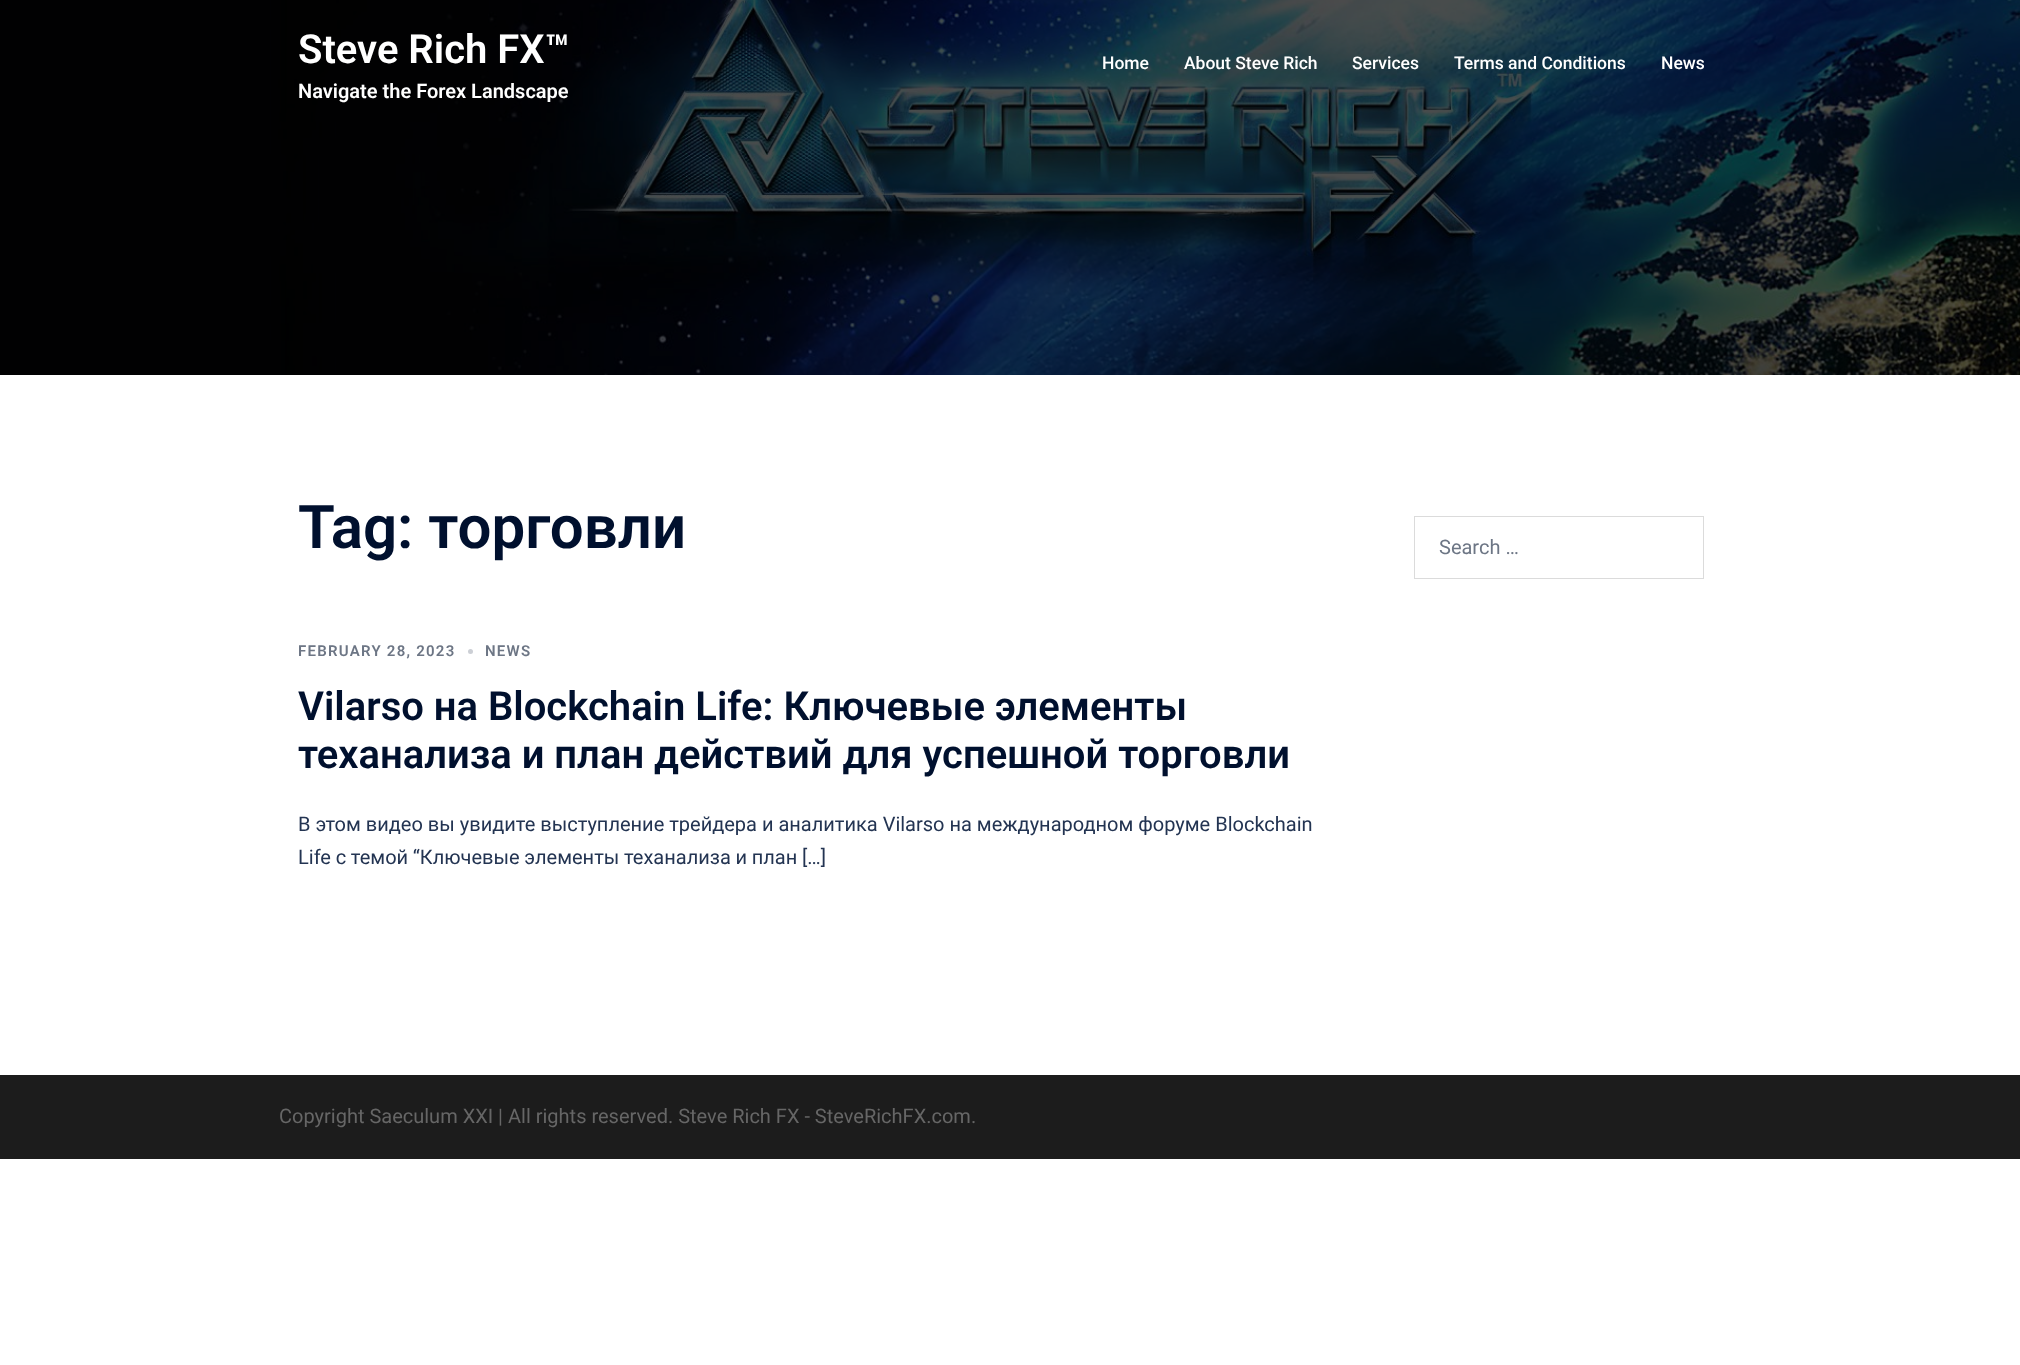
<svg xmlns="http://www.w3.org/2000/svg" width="2020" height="1365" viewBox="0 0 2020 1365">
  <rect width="100%" height="100%" fill="#ffffff"/>
  <image x="0" y="0" width="2020" height="375" href="img1.png"/>
  <text x="298" y="63" font-family="Roboto" font-size="40" font-weight="600" fill="#ffffff">Steve Rich FX™</text>
  <text x="298" y="98" font-family="Roboto" font-size="20" font-weight="600" fill="#ffffff">Navigate the Forex Landscape</text>
  <text x="1102" y="69" font-family="Roboto" font-size="17.5" font-weight="500" fill="#ffffff">Home</text>
  <text x="1184" y="69" font-family="Roboto" font-size="17.5" font-weight="500" fill="#ffffff">About Steve Rich</text>
  <text x="1352" y="69" font-family="Roboto" font-size="17.5" font-weight="500" fill="#ffffff">Services</text>
  <text x="1454" y="69" font-family="Roboto" font-size="17.5" font-weight="500" fill="#ffffff">Terms and Conditions</text>
  <text x="1661" y="69" font-family="Roboto" font-size="17.5" font-weight="500" fill="#ffffff">News</text>
  <text x="298" y="548" font-family="Roboto" font-size="60" font-weight="600" fill="#00102e">Tag: торговли</text>
  <text x="298" y="656" font-family="Roboto" font-size="15" font-weight="600" letter-spacing="1.25" fill="#6d7685">FEBRUARY 28, 2023</text>
  <circle cx="470.5" cy="651.5" r="2.5" fill="#cccfd5"/>
  <text x="485" y="656" font-family="Roboto" font-size="15" font-weight="600" letter-spacing="1.25" fill="#6d7685">NEWS</text>
  <text x="298" y="720" font-family="Roboto" font-size="40" font-weight="600" fill="#00102e">Vilarso на Blockchain Life: Ключевые элементы</text>
  <text x="298" y="768" font-family="Roboto" font-size="40" font-weight="600" fill="#00102e">теханализа и план действий для успешной торговли</text>
  <text x="298" y="831" font-family="Roboto" font-size="20" fill="#233452">В этом видео вы увидите выступление трейдера и аналитика Vilarso на международном форуме Blockchain</text>
  <text x="298" y="864" word-spacing="-0.25" font-family="Roboto" font-size="20" fill="#233452">Life с темой “Ключевые элементы теханализа и план […]</text>
  <rect x="1414.5" y="516.5" width="289" height="62" fill="none" stroke="#dbdbdb"/>
  <text x="1439" y="554" font-family="Roboto" font-size="20" fill="#6d7685">Search …</text>
  <rect x="0" y="1075" width="2020" height="84" fill="#1c1c1c"/>
  <text x="279" y="1123" font-family="Roboto" font-size="20" fill="#666666">Copyright Saeculum XXI | All rights reserved. Steve Rich FX - SteveRichFX.com.</text>
</svg>
